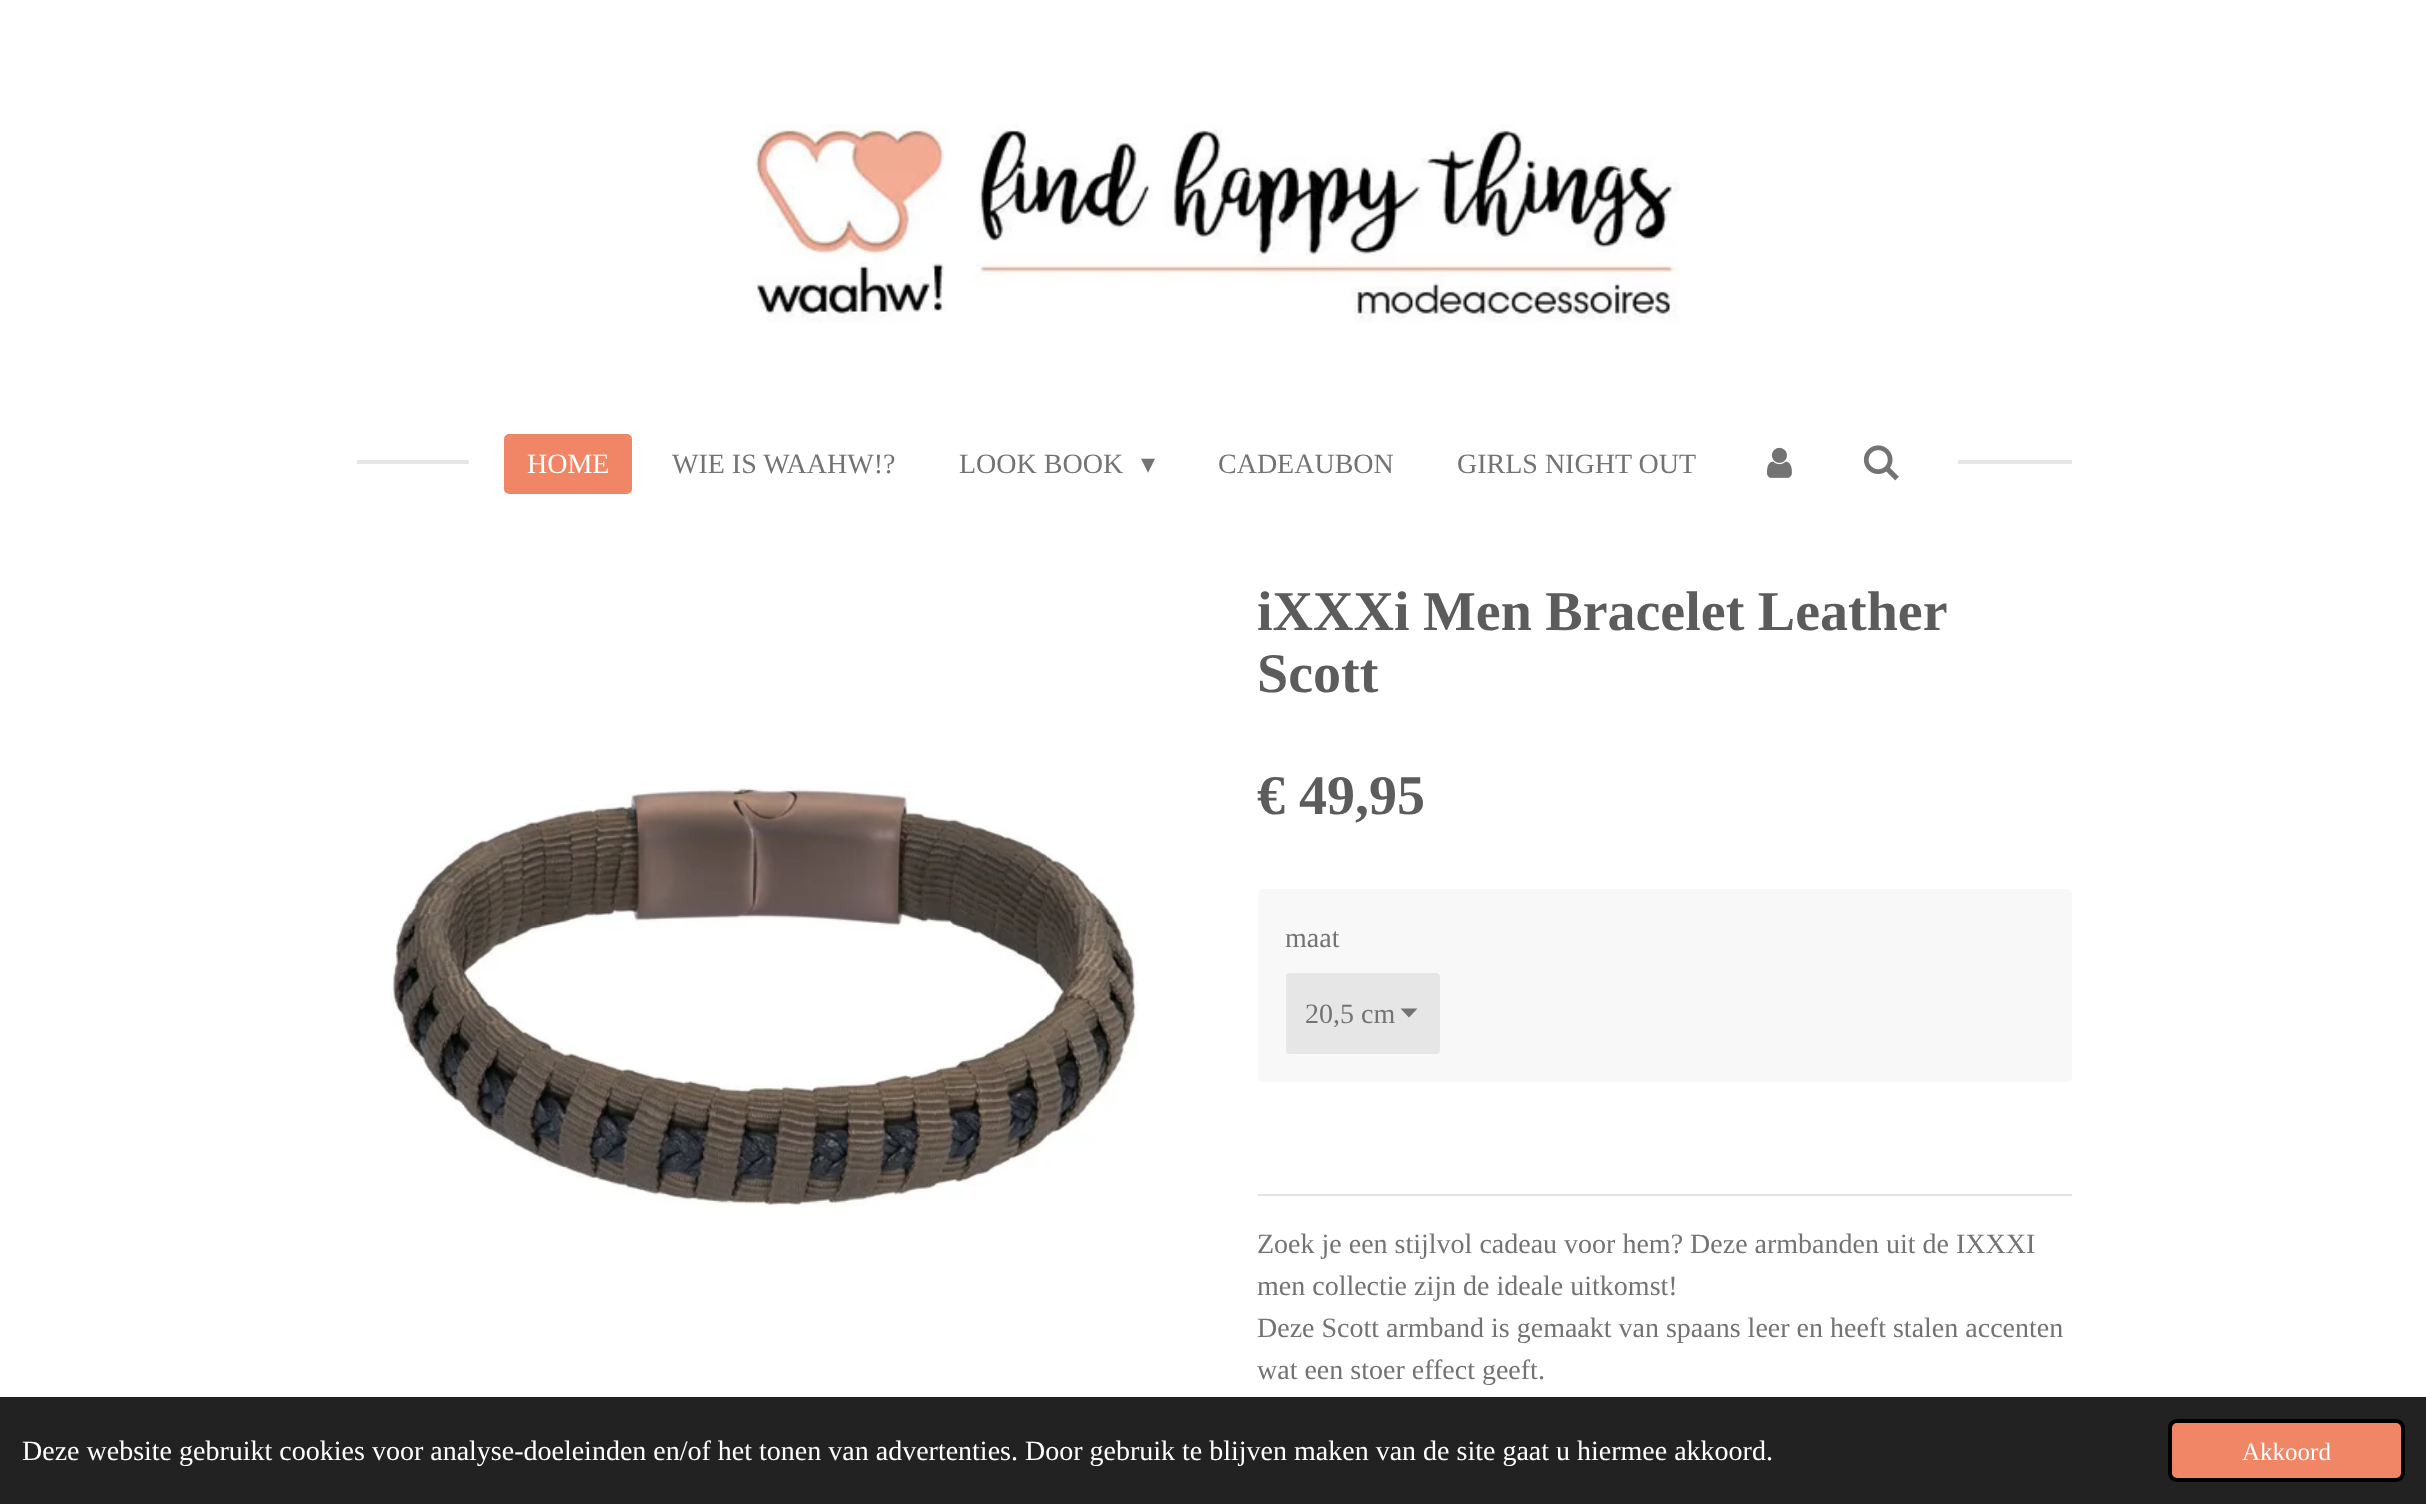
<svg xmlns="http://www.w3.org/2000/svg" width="2426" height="1504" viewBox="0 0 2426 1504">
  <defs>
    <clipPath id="clip1"><rect x="1306" y="998" width="91" height="29"/></clipPath>
  </defs>
  <rect width="100%" height="100%" fill="#ffffff"/>
  <image x="753" y="124" width="927" height="199" href="img1.png"/>
  <rect x="357" y="460" width="112" height="4" fill="#e6e6e6"/>
  <rect x="504" y="434" width="128" height="60" rx="5" fill="#f18667"/>
  <text x="527" y="473" font-family="Liberation Serif" font-size="28" fill="#ffffff">HOME</text>
  <text x="672" y="473" font-family="Liberation Serif" font-size="28" fill="#737373">WIE IS WAAHW!?</text>
  <text x="959" y="473" font-family="Liberation Serif" font-size="28" fill="#737373">LOOK BOOK</text>
  <text x="1141" y="473" font-family="DejaVu Sans" font-size="28" fill="#737373">▾</text>
  <text x="1218" y="473" font-family="Liberation Serif" font-size="28" fill="#737373">CADEAUBON</text>
  <text x="1457" y="473" font-family="Liberation Serif" font-size="28" fill="#737373">GIRLS NIGHT OUT</text>
  <image x="1766" y="447" width="26" height="31" href="img2.png"/>
  <image x="1863" y="445" width="36" height="36" href="img3.png"/>
  <rect x="1958" y="460" width="114" height="4" fill="#e6e6e6"/>
  <text x="1257" y="630" word-spacing="-0.5" font-family="Liberation Serif" font-size="56" font-weight="bold" fill="#5c5c5c">iXXXi Men Bracelet Leather</text>
  <text x="1257" y="692" font-family="Liberation Serif" font-size="56" font-weight="bold" fill="#5c5c5c">Scott</text>
  <image x="390" y="787" width="748" height="419" href="img4.png"/>
  <text x="1257" y="814" font-family="Liberation Serif" font-size="56" font-weight="bold" fill="#5c5c5c">€ 49,95</text>
  <rect x="1258" y="889" width="814" height="193" rx="5" fill="#f8f8f8"/>
  <text x="1285" y="947" font-family="Liberation Serif" font-size="28" fill="#737373">maat</text>
  <rect x="1286" y="973" width="154" height="81" rx="4" fill="#e6e6e6"/>
  <path d="M1409 1017.5L1400.5 1008.5H1417.5Z" fill="#737373"/>
  <g clip-path="url(#clip1)">
    <text x="1305" y="1023" font-family="Liberation Serif" font-size="28" fill="#737373">20,5 cm</text>
  </g>
  <rect x="1258" y="1194" width="814" height="2" fill="#e3e3e3"/>
  <text x="1257" y="1253" font-family="Liberation Serif" font-size="28" fill="#737373">Zoek je een stijlvol cadeau voor hem? Deze armbanden uit de IXXXI</text>
  <text x="1257" y="1295" font-family="Liberation Serif" font-size="28" fill="#737373">men collectie zijn de ideale uitkomst!</text>
  <text x="1257" y="1337" font-family="Liberation Serif" font-size="28" fill="#737373">Deze Scott armband is gemaakt van spaans leer en heeft stalen accenten</text>
  <text x="1257" y="1379" font-family="Liberation Serif" font-size="28" fill="#737373">wat een stoer effect geeft.</text>
  <rect x="0" y="1397" width="2426" height="107" fill="#222222"/>
  <text x="22" y="1460" font-family="Liberation Serif" font-size="28" fill="#ffffff">Deze website gebruikt cookies voor analyse-doeleinden en/of het tonen van advertenties. Door gebruik te blijven maken van de site gaat u hiermee akkoord.</text>
  <rect x="2170" y="1421" width="233" height="59" rx="7" fill="#f18667" stroke="#000000" stroke-width="4"/>
  <text x="2242" y="1460" font-family="Liberation Serif" font-size="25" fill="#ffffff">Akkoord</text>
</svg>
